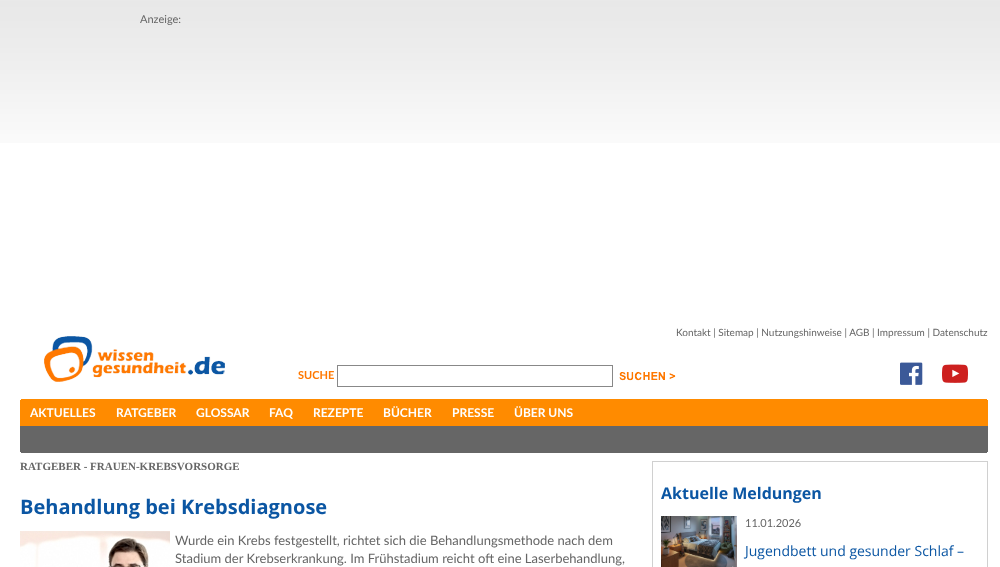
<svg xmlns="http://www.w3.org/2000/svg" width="1000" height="567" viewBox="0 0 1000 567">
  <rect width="100%" height="100%" fill="#ffffff"/>
  <image x="0" y="0" width="1000" height="143" href="img1.png"/>
  <text x="140" y="23" font-family="Lato" font-size="11" fill="#666666">Anzeige:</text>
  <image x="44" y="336" width="181" height="46" href="img2.png"/>
  <text x="676" y="336" font-family="Lato" font-size="10" fill="#666666">Kontakt | Sitemap | Nutzungshinweise | AGB | Impressum | Datenschutz</text>
  <text x="298" y="379" font-family="Lato" font-size="11" font-weight="bold" fill="#ff7800">SUCHE</text>
  <rect x="337.5" y="365.5" width="275" height="21" fill="none" stroke="#888888"/>
  <image x="619" y="371" width="57" height="10" href="img3.png"/>
  <image x="900" y="362" width="23" height="23" href="img4.png"/>
  <image x="942" y="364" width="26" height="19" href="img5.png"/>
  <rect x="20" y="399" width="968" height="27" fill="#ff8b00"/>
  <rect x="20" y="399" width="1" height="1" fill="#ffffff"/>
  <rect x="987" y="399" width="1" height="1" fill="#ffffff"/>
  <text x="30" y="417" font-family="Lato" font-size="12" font-weight="bold" fill="#ffffff">AKTUELLES</text>
  <text x="116" y="417" font-family="Lato" font-size="12" font-weight="bold" fill="#ffffff">RATGEBER</text>
  <text x="196" y="417" font-family="Lato" font-size="12" font-weight="bold" fill="#ffffff">GLOSSAR</text>
  <text x="269" y="417" font-family="Lato" font-size="12" font-weight="bold" fill="#ffffff">FAQ</text>
  <text x="313" y="417" font-family="Lato" font-size="12" font-weight="bold" fill="#ffffff">REZEPTE</text>
  <text x="383" y="417" font-family="Lato" font-size="12" font-weight="bold" fill="#ffffff">BÜCHER</text>
  <text x="452" y="417" font-family="Lato" font-size="12" font-weight="bold" fill="#ffffff">PRESSE</text>
  <text x="514" y="417" font-family="Lato" font-size="12" font-weight="bold" fill="#ffffff">ÜBER UNS</text>
  <rect x="20" y="426" width="968" height="27" fill="#666666"/>
  <rect x="20" y="452" width="1" height="1" fill="#ffffff"/>
  <rect x="987" y="452" width="1" height="1" fill="#ffffff"/>
  <text x="20" y="470" font-family="Liberation Serif" font-size="11" font-weight="bold" fill="#666666">RATGEBER - FRAUEN-KREBSVORSORGE</text>
  <text x="20" y="514" font-family="Open Sans" font-size="20" font-weight="bold" fill="#0b56a3">Behandlung bei Krebsdiagnose</text>
  <image x="20" y="531" width="150" height="36" href="img6.png"/>
  <text x="175" y="545" font-family="Lato" font-size="13" fill="#666666">Wurde ein Krebs festgestellt, richtet sich die Behandlungsmethode nach dem</text>
  <text x="175" y="563" font-family="Lato" font-size="13" fill="#666666">Stadium der Krebserkrankung. Im Frühstadium reicht oft eine Laserbehandlung,</text>
  <rect x="652.5" y="461.5" width="335" height="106" fill="none" stroke="#d0d0d0"/>
  <text x="661" y="499" font-family="Open Sans" font-size="16" font-weight="bold" fill="#0b56a3">Aktuelle Meldungen</text>
  <image x="661" y="516" width="76" height="51" href="img7.png"/>
  <text x="745" y="527" font-family="Lato" font-size="11" fill="#666666">11.01.2026</text>
  <text x="745" y="556" font-family="Open Sans" font-size="14" fill="#0b56a3">Jugendbett und gesunder Schlaf –</text>
</svg>
